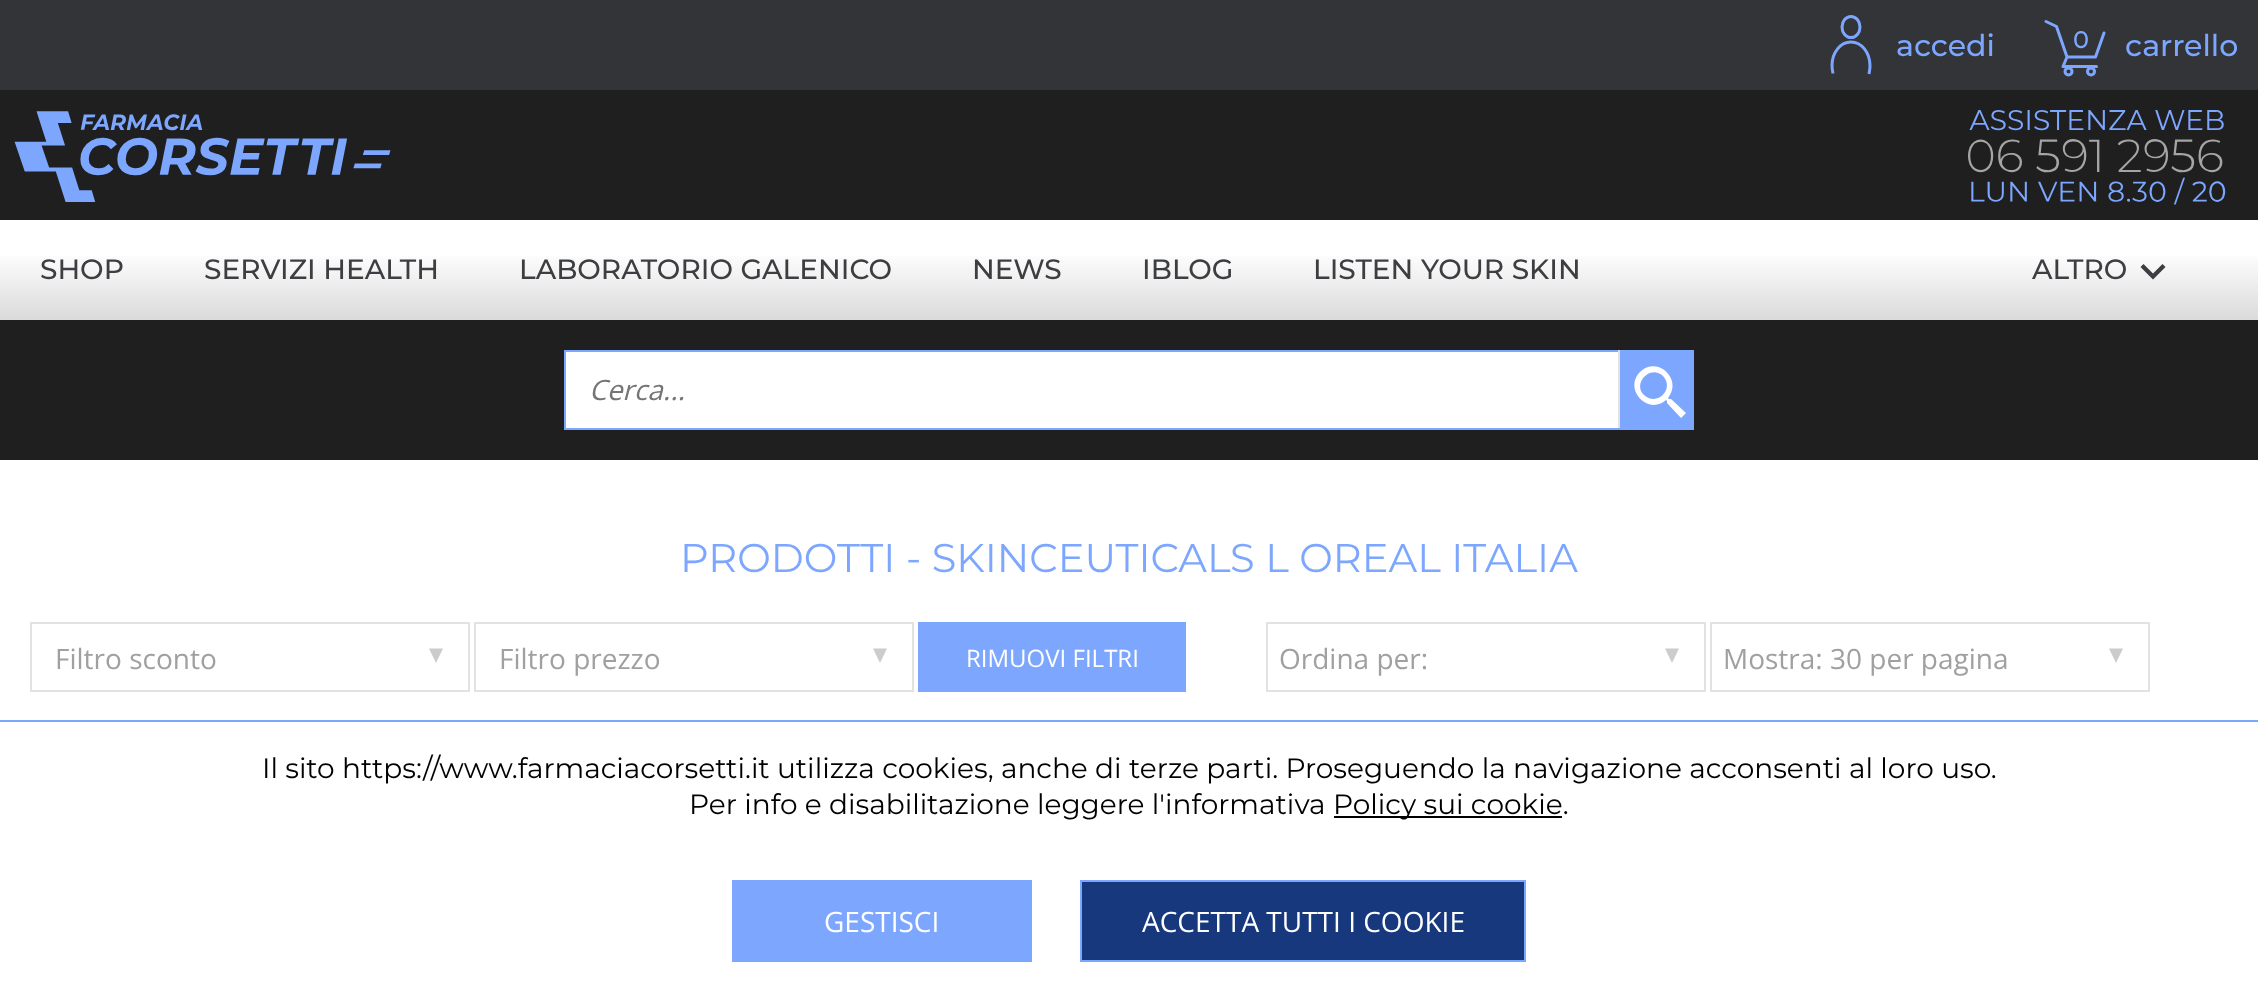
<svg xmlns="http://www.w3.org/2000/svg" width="2258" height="982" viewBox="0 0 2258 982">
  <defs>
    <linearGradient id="g1" gradientUnits="userSpaceOnUse" x1="1129" y1="220" x2="1129" y2="320"><stop offset="0.31" stop-color="#ffffff"/><stop offset="1" stop-color="#dadada"/></linearGradient>
  </defs>
  <rect width="100%" height="100%" fill="#ffffff"/>
  <rect x="0" y="0" width="2258" height="90" fill="#333438"/>
  <ellipse cx="1851" cy="27" rx="9" ry="10.5" fill="none" stroke="#7da7ff" stroke-width="3"/>
  <path d="M1833 73.5C1832.5 71 1832 68.5 1832 65.5C1832 52.5 1840.5 42 1851 42C1861.5 42 1870 52.5 1870 66C1870 68.5 1869.5 71 1869 74" fill="none" stroke="#7da7ff" stroke-width="3"/>
  <text x="1896" y="56" font-family="Montserrat" font-size="30" font-weight="500" fill="#7da7ff">accedi</text>
  <path d="M2046 21.5L2056.5 26.5L2067 57H2095.5L2104 33M2096.5 66.5H2063L2067 57" fill="none" stroke="#7da7ff" stroke-width="3" stroke-linecap="round" stroke-linejoin="round"/>
  <circle cx="2091" cy="71.5" r="3.5" fill="none" stroke="#7da7ff" stroke-width="3"/>
  <circle cx="2068.5" cy="71.5" r="3.5" fill="none" stroke="#7da7ff" stroke-width="3"/>
  <text x="2073" y="48" font-family="Montserrat" font-size="24" font-weight="500" fill="#7da7ff">0</text>
  <text x="2125" y="56" font-family="Montserrat" font-size="30" font-weight="500" fill="#7da7ff">carrello</text>
  <rect x="0" y="90" width="2258" height="130" fill="#1f1f1f"/>
  <image x="14" y="110" width="2212" height="95" href="img1.png"/>
  <rect x="0" y="256" width="2258" height="64" fill="url(#g1)"/>
  <text x="40" y="279" font-family="Montserrat" font-size="28" font-weight="500" fill="#3d3e42">SHOP</text>
  <text x="204" y="279" font-family="Montserrat" font-size="28" font-weight="500" fill="#3d3e42">SERVIZI HEALTH</text>
  <text x="519" y="279" font-family="Montserrat" font-size="28" font-weight="500" fill="#3d3e42">LABORATORIO GALENICO</text>
  <text x="972" y="279" font-family="Montserrat" font-size="28" font-weight="500" fill="#3d3e42">NEWS</text>
  <text x="1142" y="279" font-family="Montserrat" font-size="28" font-weight="500" fill="#3d3e42">IBLOG</text>
  <text x="1313" y="279" font-family="Montserrat" font-size="28" font-weight="500" fill="#3d3e42">LISTEN YOUR SKIN</text>
  <text x="2032" y="279" font-family="Montserrat" font-size="28" font-weight="500" fill="#3d3e42">ALTRO</text>
  <path d="M2143.5 264L2153 273.5L2162.5 264L2165.5 267L2153 279.5L2140.5 267Z" fill="#3d3e42"/>
  <rect x="0" y="320" width="2258" height="140" fill="#1f1f1f"/>
  <rect x="566" y="352" width="1052" height="76" fill="#ffffff"/>
  <rect x="564" y="350" width="1056" height="2" fill="#7da7ff"/>
  <rect x="1618" y="350" width="2" height="80" fill="#e2e2e2"/>
  <rect x="564" y="428" width="1056" height="2" fill="#7da7ff"/>
  <rect x="564" y="350" width="2" height="80" fill="#7da7ff"/>
  <text x="589" y="400" font-family="Open Sans" font-size="28" font-style="italic" fill="#757575">Cerca...</text>
  <rect x="1620" y="350" width="74" height="80" fill="#7da7ff"/>
  <path d="M1644 395C1657 407 1675 389 1663 376C1651 364 1632 383 1644 395ZM1671 399L1686 413L1681 418L1667 403V401L1666 400C1648 416 1623 389 1640 372C1658 355 1683 380 1668 398L1669 399Z" fill="#ffffff"/>
  <text x="680" y="572" font-family="Montserrat" font-size="40" fill="#7da7ff">PRODOTTI - SKINCEUTICALS L OREAL ITALIA</text>
  <path d="M429 648.5H443L436 663Z" fill="#cccccc"/>
  <rect x="31" y="623" width="438" height="68" fill="none" stroke="#e2e2e2" stroke-width="2"/>
  <text x="55" y="669" font-family="Open Sans" font-size="28" fill="#a0a0a0">Filtro sconto</text>
  <path d="M873 648.5H887L880 663Z" fill="#cccccc"/>
  <rect x="475" y="623" width="438" height="68" fill="none" stroke="#e2e2e2" stroke-width="2"/>
  <text x="499" y="669" font-family="Open Sans" font-size="28" fill="#a0a0a0">Filtro prezzo</text>
  <rect x="918" y="622" width="268" height="70" fill="#7da7ff"/>
  <text x="966" y="667" font-family="Open Sans" font-size="24" fill="#ffffff">RIMUOVI FILTRI</text>
  <path d="M1665 648.5H1679L1672 663Z" fill="#cccccc"/>
  <rect x="1267" y="623" width="438" height="68" fill="none" stroke="#e2e2e2" stroke-width="2"/>
  <text x="1279" y="669" font-family="Open Sans" font-size="28" fill="#a0a0a0">Ordina per:</text>
  <path d="M2109 648.5H2123L2116 663Z" fill="#cccccc"/>
  <rect x="1711" y="623" width="438" height="68" fill="none" stroke="#e2e2e2" stroke-width="2"/>
  <text x="1723" y="669" font-family="Open Sans" font-size="28" fill="#a0a0a0">Mostra: 30 per pagina</text>
  <rect x="0" y="720" width="2258" height="2" fill="#7da7fe"/>
  <text x="262" y="778" font-family="Montserrat" font-size="28" fill="#000000">Il sito https://www.farmaciacorsetti.it utilizza cookies, anche di terze parti. Proseguendo la navigazione acconsenti al loro uso.</text>
  <text x="689" y="814" font-family="Montserrat" font-size="28" fill="#000000">Per info e disabilitazione leggere l'informativa</text>
  <rect x="1334" y="816" width="228" height="2" fill="#000000"/>
  <text x="1333" y="814" font-family="Montserrat" font-size="28" fill="#000000">Policy sui cookie.</text>
  <rect x="732" y="880" width="300" height="82" fill="#7da7ff"/>
  <text x="824" y="932" font-family="Open Sans" font-size="28" fill="#ffffff">GESTISCI</text>
  <rect x="1081" y="881" width="444" height="80" fill="#17387d" stroke="#7da7ff" stroke-width="2"/>
  <text x="1142" y="932" font-family="Open Sans" font-size="28" fill="#ffffff">ACCETTA TUTTI I COOKIE</text>
</svg>
